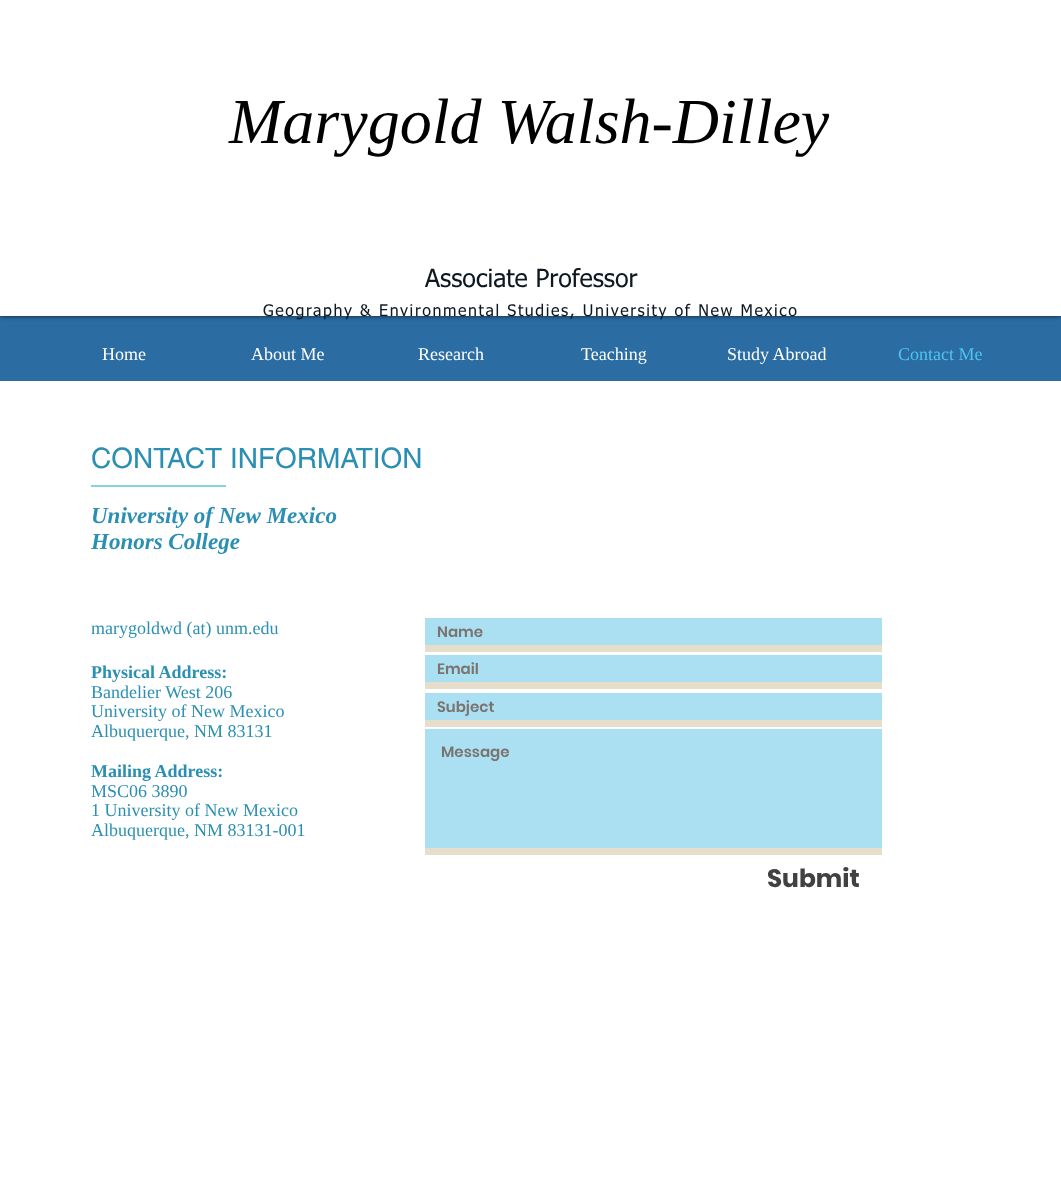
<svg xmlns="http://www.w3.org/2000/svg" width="1061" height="1195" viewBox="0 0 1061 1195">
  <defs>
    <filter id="blur1" x="-50%" y="-200%" width="200%" height="500%"><feGaussianBlur stdDeviation="2.5"/></filter>
  </defs>
  <rect width="100%" height="100%" fill="#ffffff"/>
  <rect x="0" y="316" width="1061" height="65" fill="#2b6ca3"/>
  <rect x="0" y="0" width="1061" height="316" fill="#000000" fill-opacity="0.7" filter="url(#blur1)"/>
  <rect x="0" y="0" width="1061" height="316" fill="#ffffff"/>
  <text x="229" y="143" font-family="Liberation Serif" font-size="64" font-style="italic" fill="#000000">Marygold Walsh-Dilley</text>
  <text x="425" y="287" font-family="tahoma" font-size="25" fill="#0e1821">Associate Professor</text>
  <text x="263" y="316" font-family="tahoma" font-size="16" letter-spacing="1.6" fill="#0e1821">Geography &amp; Environmental Studies, University of New Mexico</text>
  <text x="102" y="360" font-family="Liberation Serif" font-size="18" fill="#ffffff">Home</text>
  <text x="251" y="360" font-family="Liberation Serif" font-size="18" fill="#ffffff">About Me</text>
  <text x="418" y="360" font-family="Liberation Serif" font-size="18" fill="#ffffff">Research</text>
  <text x="581" y="360" font-family="Liberation Serif" font-size="18" fill="#ffffff">Teaching</text>
  <text x="727" y="360" font-family="Liberation Serif" font-size="18" fill="#ffffff">Study Abroad</text>
  <text x="898" y="360" font-family="Liberation Serif" font-size="18" fill="#50c4ed">Contact Me</text>
  <text x="91" y="468" font-family="helvetica" font-size="28" fill="#2b8fb3">CONTACT INFORMATION</text>
  <rect x="91" y="485" width="135" height="2" fill="#86d2ed"/>
  <text x="91" y="523" font-family="Liberation Serif" font-size="23" font-weight="bold" font-style="italic" fill="#2b8fb3">University of New Mexico</text>
  <text x="91" y="549" font-family="Liberation Serif" font-size="23" font-weight="bold" font-style="italic" fill="#2b8fb3">Honors College</text>
  <text x="91" y="634" font-family="Liberation Serif" font-size="18" fill="#2b8fb3">marygoldwd (at) unm.edu</text>
  <text x="91" y="678" font-family="Liberation Serif" font-size="18" font-weight="bold" fill="#2b8fb3">Physical Address:</text>
  <text x="91" y="698" font-family="Liberation Serif" font-size="18" fill="#2b8fb3">Bandelier West 206</text>
  <text x="91" y="717" font-family="Liberation Serif" font-size="18" fill="#2b8fb3">University of New Mexico</text>
  <text x="91" y="737" font-family="Liberation Serif" font-size="18" fill="#2b8fb3">Albuquerque, NM 83131</text>
  <text x="91" y="777" font-family="Liberation Serif" font-size="18" font-weight="bold" fill="#2b8fb3">Mailing Address:</text>
  <text x="91" y="797" font-family="Liberation Serif" font-size="18" fill="#2b8fb3">MSC06 3890</text>
  <text x="91" y="816" font-family="Liberation Serif" font-size="18" fill="#2b8fb3">1 University of New Mexico</text>
  <text x="91" y="836" font-family="Liberation Serif" font-size="18" fill="#2b8fb3">Albuquerque, NM 83131-001</text>
  <rect x="425" y="618" width="457" height="27" fill="#abe0f2"/>
  <rect x="425" y="645" width="457" height="7" fill="#e6deca"/>
  <text x="437" y="637" font-family="Poppins" font-size="15" font-weight="600" fill="#7a736f">Name</text>
  <rect x="425" y="655" width="457" height="27" fill="#abe0f2"/>
  <rect x="425" y="682" width="457" height="7" fill="#e6deca"/>
  <text x="437" y="674" font-family="Poppins" font-size="15" font-weight="600" fill="#7a736f">Email</text>
  <rect x="425" y="693" width="457" height="27" fill="#abe0f2"/>
  <rect x="425" y="720" width="457" height="7" fill="#e6deca"/>
  <text x="437" y="712" font-family="Poppins" font-size="15" font-weight="600" fill="#7a736f">Subject</text>
  <rect x="425" y="729" width="457" height="119" fill="#abe0f2"/>
  <rect x="425" y="848" width="457" height="7" fill="#e6deca"/>
  <text x="441" y="757" font-family="Poppins" font-size="15" font-weight="600" fill="#7a736f">Message</text>
  <text x="767" y="887" font-family="Poppins" font-size="25" font-weight="bold" fill="#414141">Submit</text>
</svg>
